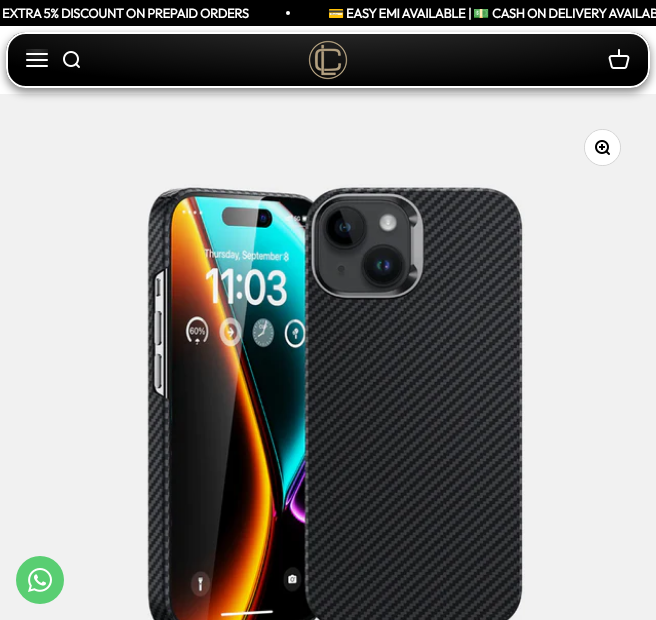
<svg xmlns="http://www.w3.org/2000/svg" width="656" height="620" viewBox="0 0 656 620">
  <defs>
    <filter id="blur1" x="-50%" y="-200%" width="200%" height="500%"><feGaussianBlur stdDeviation="5"/></filter>
    <radialGradient id="g1" gradientUnits="userSpaceOnUse" cx="0" cy="0" r="1" gradientTransform="matrix(489 0 0 85 341 2.9)"><stop offset="0" stop-color="#ffffff" stop-opacity="0.23"/><stop offset="1" stop-color="#ffffff" stop-opacity="0"/></radialGradient>
    <radialGradient id="g2" gradientUnits="userSpaceOnUse" cx="0" cy="0" r="1" gradientTransform="matrix(17 0 0 33 37 38)"><stop offset="0" stop-color="#ffffff" stop-opacity="0.23"/><stop offset="1" stop-color="#ffffff" stop-opacity="0"/></radialGradient>
  </defs>
  <rect width="100%" height="100%" fill="#ffffff"/>
  <rect x="0" y="0" width="656" height="26" fill="#000000"/>
  <text x="2" y="18" font-family="Outfit" font-size="13" font-weight="bold" letter-spacing="-0.3" fill="#ffffff">EXTRA 5% DISCOUNT ON PREPAID ORDERS</text>
  <circle cx="288" cy="13" r="2" fill="#ffffff"/>
  <text x="328" y="18" font-family="Noto Color Emoji" font-size="13" font-weight="bold" letter-spacing="-0.3" fill="#ffffff">💳</text>
  <text x="346" y="18" font-family="Outfit" font-size="13" font-weight="bold" letter-spacing="-0.3" fill="#ffffff">EASY EMI AVAILABLE |</text>
  <text x="473" y="18" font-family="Noto Color Emoji" font-size="13" font-weight="bold" letter-spacing="-0.3" fill="#ffffff">💵</text>
  <text x="492" y="18" font-family="Outfit" font-size="13" font-weight="bold" letter-spacing="-0.3" fill="#ffffff">CASH ON DELIVERY AVAILAB</text>
  <rect x="0" y="94" width="656" height="526" fill="#f1f1f1"/>
  <rect x="6" y="36" width="644" height="56" rx="20" fill="#000000" fill-opacity="0.5" filter="url(#blur1)"/>
  <rect x="6" y="32" width="644" height="56" rx="20" fill="#000000"/>
  <rect x="7" y="33" width="642" height="54" rx="19" fill="url(#g1)" stroke="#ffffff" stroke-width="2"/>
  <rect x="26" y="49" width="22" height="19" fill="url(#g2)"/>
  <image x="26" y="53" width="22" height="14" href="img1.png"/>
  <image x="63" y="51" width="17" height="17" href="img2.png"/>
  <image x="308" y="40" width="40" height="40" href="img3.png"/>
  <image x="608" y="49" width="22" height="20" href="img4.png"/>
  <circle cx="602.5" cy="147.5" r="18" fill="none" stroke="#d4d4d4"/>
  <circle cx="602.5" cy="147.5" r="17.5" fill="#ffffff"/>
  <image x="595" y="140" width="15" height="15" href="img5.png"/>
  <image x="147" y="184" width="378" height="436" href="img6.png"/>
  <circle cx="40" cy="580" r="24" fill="#59ce72"/>
  <image x="28" y="568" width="24" height="24" href="img7.png"/>
</svg>
